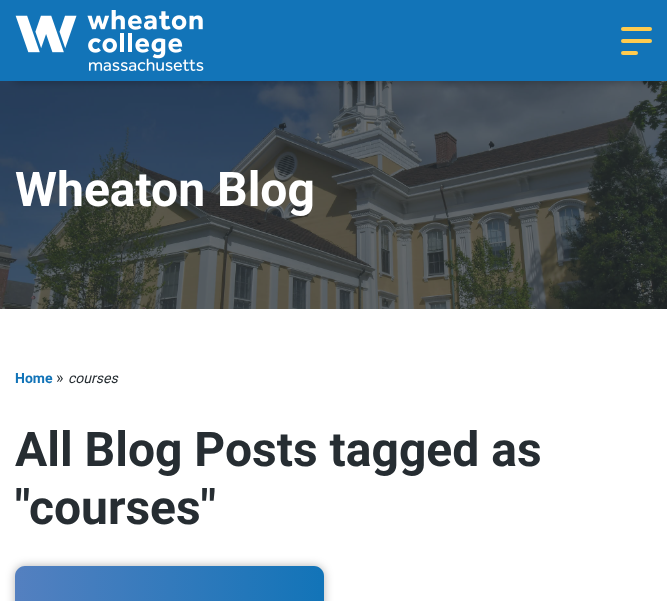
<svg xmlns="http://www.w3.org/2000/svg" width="667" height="601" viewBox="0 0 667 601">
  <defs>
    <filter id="blur1" x="-50%" y="-200%" width="200%" height="500%"><feGaussianBlur stdDeviation="5"/></filter>
    <linearGradient id="g1" gradientUnits="userSpaceOnUse" x1="15" y1="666" x2="324" y2="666"><stop offset="0" stop-color="#5480c0"/><stop offset="1" stop-color="#1274b8"/></linearGradient>
  </defs>
  <rect width="100%" height="100%" fill="#ffffff"/>
  <image x="0" y="81" width="667" height="228" href="img2.png"/>
  <rect x="15" y="30" width="637" height="51" fill="#000000" fill-opacity="0.3" filter="url(#blur1)"/>
  <rect x="0" y="0" width="667" height="81" fill="#1274b8"/>
  <image x="15" y="10" width="189" height="61" href="img1.png"/>
  <rect x="621" y="27" width="31" height="4" rx="2" fill="#ffcb4e"/>
  <rect x="621" y="39" width="31" height="4" rx="2" fill="#ffcb4e"/>
  <rect x="621" y="51" width="17" height="4" rx="2" fill="#ffcb4e"/>
  <text x="15" y="206" font-family="Roboto" font-size="48" font-weight="bold" fill="#ffffff">Wheaton Blog</text>
  <text x="15" y="383" font-family="Roboto" font-size="14" font-weight="bold" fill="#1274b8">Home</text>
  <text x="56" y="383" font-family="Roboto" font-size="16" fill="#262d32">»</text>
  <text x="68" y="383" font-family="Roboto" font-size="14" font-style="italic" fill="#262d32">courses</text>
  <text x="15" y="466" font-family="Roboto" font-size="48" font-weight="bold" fill="#262d32">All Blog Posts tagged as</text>
  <text x="15" y="524" font-family="Roboto" font-size="48" font-weight="bold" fill="#262d32">"courses"</text>
  <rect x="15" y="566" width="309" height="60" rx="10" fill="#000000" fill-opacity="0.3" filter="url(#blur1)"/>
  <path d="M25 566H314C319.5 566 324 570.5 324 576V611H15V576C15 570.5 19.5 566 25 566Z" fill="url(#g1)"/>
</svg>
